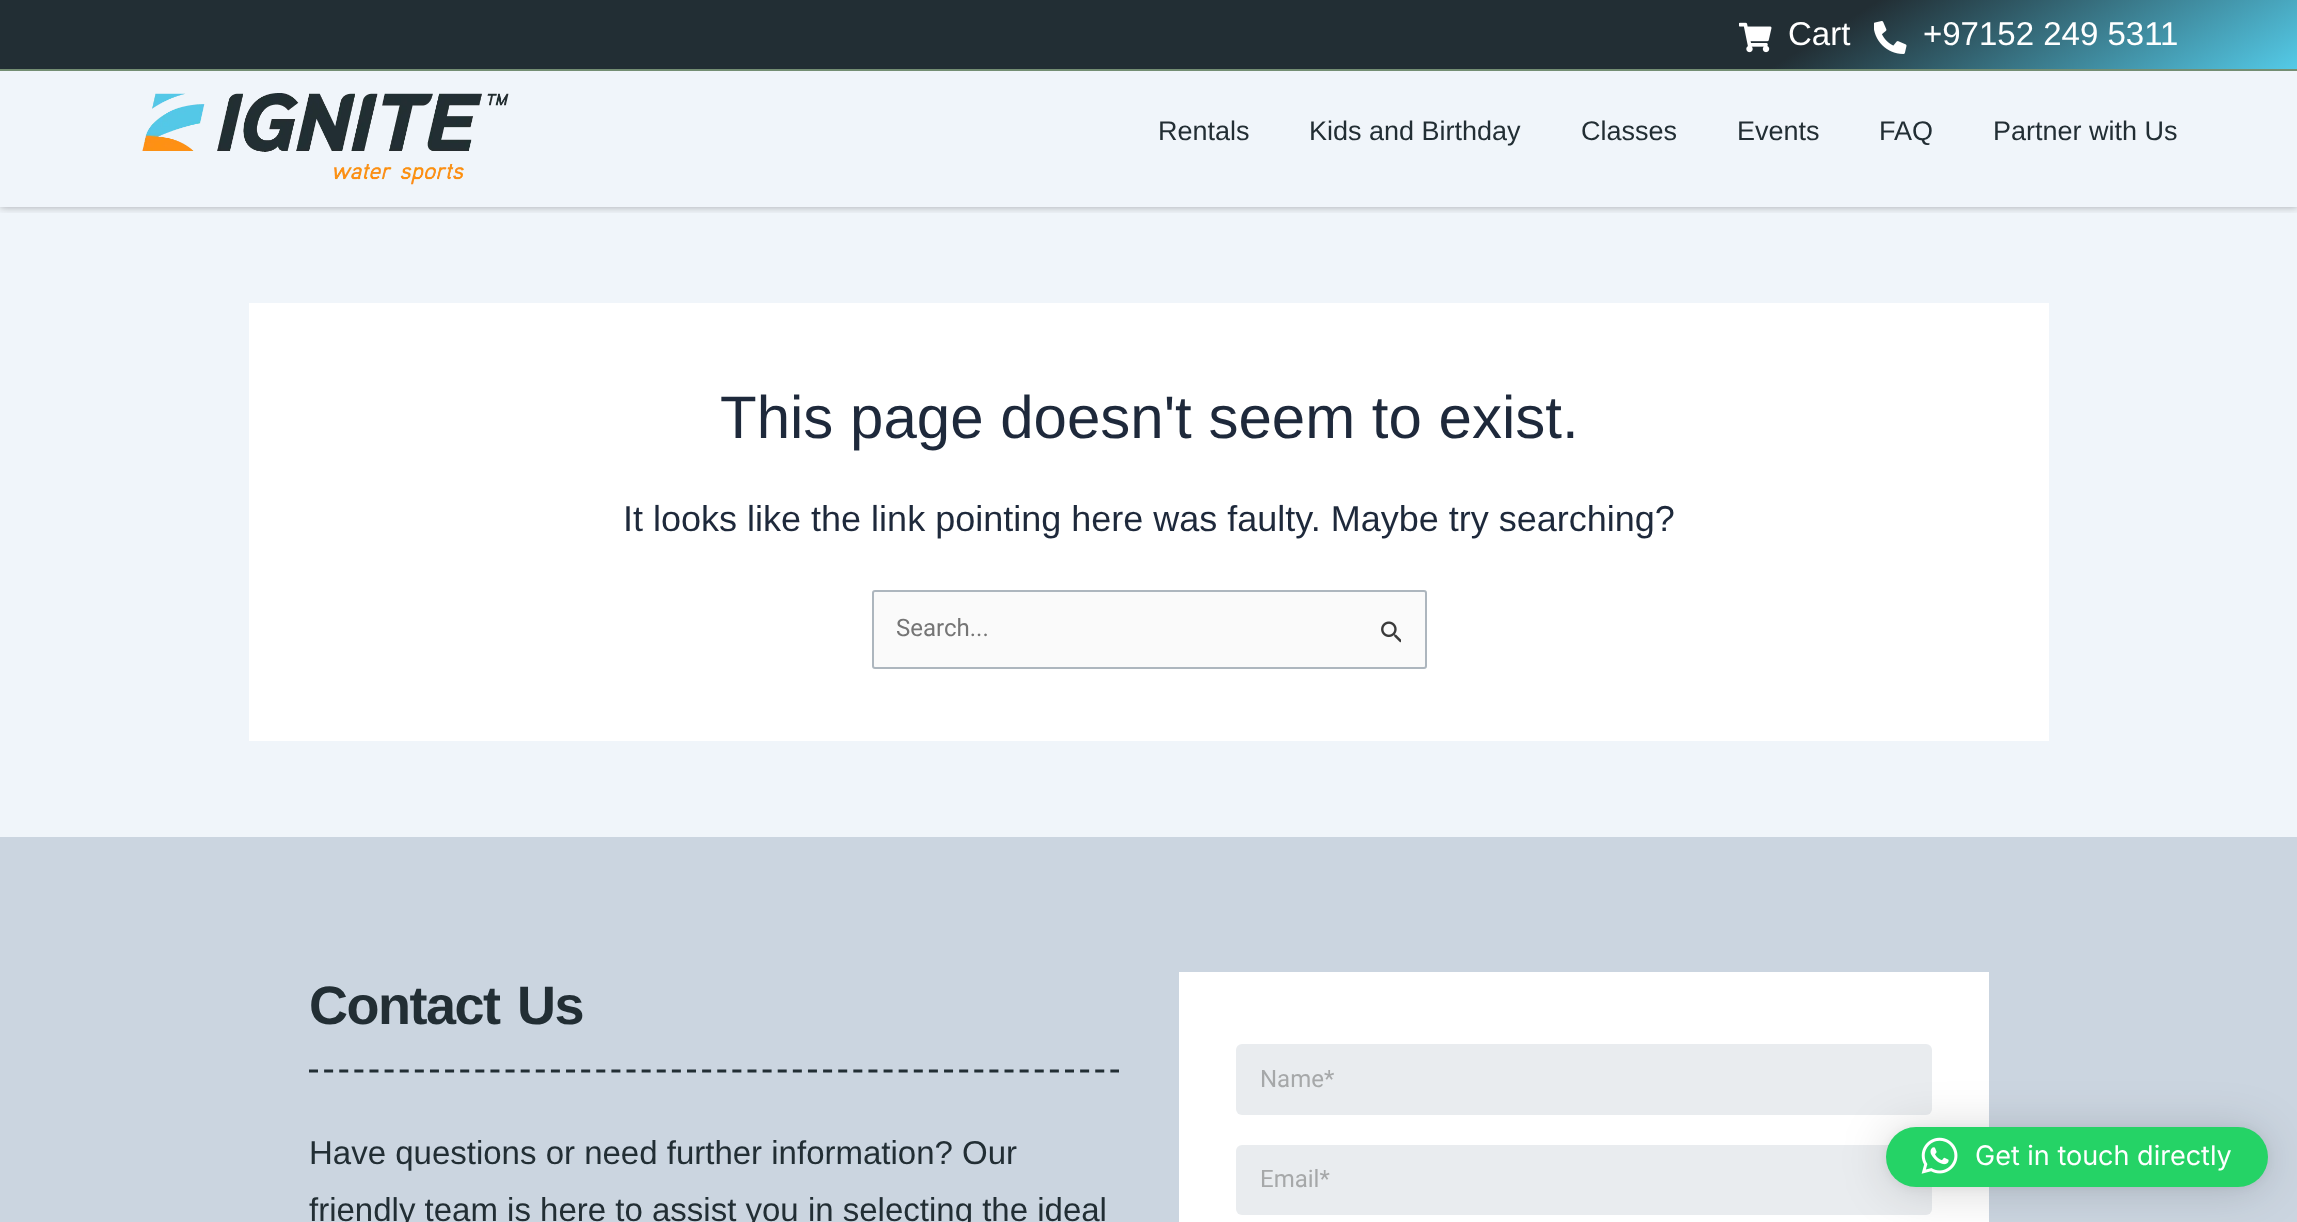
<svg xmlns="http://www.w3.org/2000/svg" width="2297" height="1222" viewBox="0 0 2297 1222">
  <defs>
    <clipPath id="clip1"><rect x="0" y="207" width="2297" height="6"/></clipPath>
    <filter id="blur1" x="-50%" y="-200%" width="200%" height="500%"><feGaussianBlur stdDeviation="4"/></filter>
    <linearGradient id="g1" gradientUnits="userSpaceOnUse" x1="1487" y1="576" x2="811" y2="-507"><stop offset="0" stop-color="#54cbe8"/><stop offset="0.22" stop-color="#222e34"/></linearGradient>
    <filter id="blur2" x="-50%" y="-200%" width="200%" height="500%"><feGaussianBlur stdDeviation="24"/></filter>
    <filter id="blur3" x="-50%" y="-200%" width="200%" height="500%"><feGaussianBlur stdDeviation="4.5"/></filter>
  </defs>
  <rect width="100%" height="100%" fill="#f0f5fa"/>
  <g clip-path="url(#clip1)">
    <rect x="0" y="0" width="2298" height="207" fill="#000000" fill-opacity="0.32" filter="url(#blur1)"/>
  </g>
  <rect x="0" y="0" width="2297" height="69" fill="url(#g1)"/>
  <rect x="0" y="69" width="2297" height="2" fill="#748e73"/>
  <image x="1739" y="22" width="33" height="31" href="img1.png"/>
  <text x="1788" y="45" font-family="Liberation Sans" font-size="33" fill="#ffffff">Cart</text>
  <image x="1874" y="21" width="33" height="33" href="img2.png"/>
  <text x="1923" y="45" font-family="Liberation Sans" font-size="33" fill="#ffffff">+97152 249 5311</text>
  <image x="142" y="93" width="367" height="92" href="img3.png"/>
  <text x="1158" y="140" font-family="Liberation Sans" font-size="27" fill="#222e34">Rentals</text>
  <text x="1309" y="140" font-family="Liberation Sans" font-size="27" fill="#222e34">Kids and Birthday</text>
  <text x="1581" y="140" font-family="Liberation Sans" font-size="27" fill="#222e34">Classes</text>
  <text x="1737" y="140" font-family="Liberation Sans" font-size="27" fill="#222e34">Events</text>
  <text x="1879" y="140" font-family="Liberation Sans" font-size="27" fill="#222e34">FAQ</text>
  <text x="1993" y="140" font-family="Liberation Sans" font-size="27" fill="#222e34">Partner with Us</text>
  <rect x="249" y="303" width="1800" height="438" fill="#ffffff"/>
  <text x="720" y="438" font-family="Liberation Sans" font-size="60" fill="#1e293b">This page doesn't seem to exist.</text>
  <text x="623" y="531" font-family="Liberation Sans" font-size="36" fill="#1e293b">It looks like the link pointing here was faulty. Maybe try searching?</text>
  <rect x="873" y="591" width="553" height="77" rx="2" fill="#fafafa" stroke="#adb6be" stroke-width="2"/>
  <text x="896" y="636" font-family="Roboto" font-size="24" fill="#757575">Search...</text>
  <image x="1381" y="621" width="20" height="22" href="img4.png"/>
  <rect x="0" y="837" width="2297" height="385" fill="#cbd5e0"/>
  <text x="309" y="1024" word-spacing="4" font-family="Liberation Sans" font-size="54" font-weight="bold" letter-spacing="-1.5" fill="#222e34">Contact Us</text>
  <path d="M309 1071H1119" fill="none" stroke="#222e34" stroke-width="3" stroke-dasharray="9 6.12"/>
  <text x="309" y="1164" font-family="Liberation Sans" font-size="33" fill="#222e34">Have questions or need further information? Our</text>
  <text x="309" y="1221" font-family="Liberation Sans" font-size="33" fill="#222e34">friendly team is here to assist you in selecting the ideal</text>
  <rect x="1179" y="972" width="810" height="250" fill="#ffffff"/>
  <rect x="1236" y="1044" width="696" height="71" rx="6" fill="#e9ecef"/>
  <text x="1260" y="1087" font-family="Roboto" font-size="24" fill="#a6a8a9">Name*</text>
  <rect x="1236" y="1145" width="696" height="70" rx="6" fill="#e9ecef"/>
  <text x="1260" y="1187" font-family="Roboto" font-size="24" fill="#a6a8a9">Email*</text>
  <rect x="1886" y="1130" width="382" height="60" rx="30" fill="#000000" fill-opacity="0.16" filter="url(#blur2)"/>
  <rect x="1886" y="1128" width="382" height="60" rx="30" fill="#000000" fill-opacity="0.06" filter="url(#blur3)"/>
  <rect x="1886" y="1127" width="382" height="60" rx="30" fill="#25d366"/>
  <image x="1921" y="1137" width="37" height="37" href="img5.png"/>
  <text x="1975" y="1165" font-family="Inter" font-size="27" fill="#ffffff">Get in touch directly</text>
</svg>
